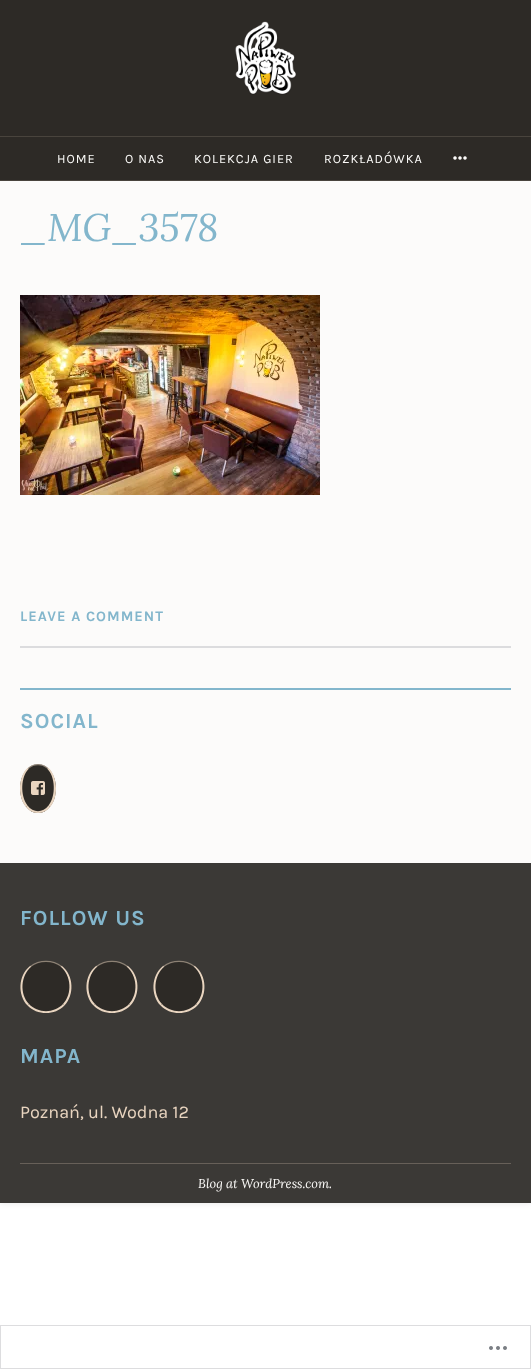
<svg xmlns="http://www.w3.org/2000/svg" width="531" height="1369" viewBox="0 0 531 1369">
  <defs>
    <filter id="blur1" x="-50%" y="-200%" width="200%" height="500%"><feGaussianBlur stdDeviation="3"/></filter>
  </defs>
  <rect width="100%" height="100%" fill="#ffffff"/>
  <rect x="0" y="0" width="531" height="1203" fill="#000000" fill-opacity="0.1" filter="url(#blur1)"/>
  <rect x="0" y="181" width="531" height="682" fill="#fcfbfa"/>
  <rect x="0" y="0" width="531" height="180" fill="#2d2a26"/>
  <image x="235" y="21" width="61" height="74" href="img1.png"/>
  <rect x="0" y="136" width="531" height="1" fill="#49443d"/>
  <rect x="0" y="180" width="531" height="1" fill="#49443d"/>
  <text x="57" y="163" font-family="Karla" font-size="12.75" letter-spacing="1" fill="#fcfbf9">HOME</text>
  <text x="125" y="163" font-family="Karla" font-size="12.75" letter-spacing="1" fill="#fcfbf9">O NAS</text>
  <text x="194" y="163" font-family="Karla" font-size="12.75" letter-spacing="1" fill="#fcfbf9">KOLEKCJA GIER</text>
  <text x="324" y="163" font-family="Karla" font-size="12.75" letter-spacing="1" fill="#fcfbf9">ROZKŁADÓWKA</text>
  <image x="453" y="156" width="14" height="4" href="img2.png"/>
  <text x="20" y="241" font-family="Lora" font-size="38.5" font-style="italic" fill="#83b6cc">_MG_3578</text>
  <image x="20" y="295" width="300" height="200" href="img3.png"/>
  <text x="20" y="621" font-family="Karla" font-size="14.5" font-weight="bold" letter-spacing="1" fill="#83b6cc">LEAVE A COMMENT</text>
  <rect x="20" y="646" width="491" height="2" fill="#dcdcde"/>
  <rect x="20" y="688" width="491" height="2" fill="#83b6cc"/>
  <text x="20" y="728" font-family="Karla" font-size="21.5" font-weight="bold" letter-spacing="1" fill="#83b6cc">SOCIAL</text>
  <ellipse cx="38" cy="788.5" rx="18" ry="24.5" fill="#2d2a26"/>
  <path d="M38 764C34 764 30.5 765.5 27.5 768L29 768.5C34 764 42 764 47 768.5L48.5 768C45.5 765.5 42 764 38 764Z" fill="#e9d5c0" fill-opacity="0.5"/>
  <path d="M56 788.5C56 795.5 54 802.5 50 807L48.5 805.5C56 796 55.5 776.5 47 768.5L48.5 768C53.5 772.5 56 780.5 56 788.5Z" fill="#e9d5c0"/>
  <path d="M50 807C44 815 32 815 26 807L27.5 805.5C33 813 43 813 48.5 805.5Z" fill="#e9d5c0"/>
  <path d="M20 788.5C20 780.5 22.5 772.5 27.5 768L29 768.5C20.5 776.5 20 796 27.5 805.5L26 807C22 802.5 20 795.5 20 788.5Z" fill="#e9d5c0"/>
  <image x="31" y="781" width="14" height="14" href="img4.png"/>
  <rect x="0" y="863" width="531" height="340" fill="#3b3936"/>
  <rect x="20" y="1163" width="491" height="1" fill="#676059"/>
  <text x="20" y="925" font-family="Karla" font-size="21.5" font-weight="bold" letter-spacing="1" fill="#83b6cc">FOLLOW US</text>
  <circle cx="46" cy="987" r="26" fill="#2d2a26"/>
  <path d="M46 962C40 962 35 964 31.5 966.5L30 966C39 959 53 959 62 966L60.5 966.5C57 964 52 962 46 962Z" fill="#e9d5c0" fill-opacity="0.5"/>
  <path d="M62 966C74 975.5 74.5 995 64.5 1005.5L63 1004C72.5 994 71.5 975.5 60.5 966.5Z" fill="#e9d5c0"/>
  <path d="M64.5 1005.5C55 1015.5 37 1015.5 27.5 1005.5L29 1004C37.5 1013.5 54.5 1013.5 63 1004Z" fill="#e9d5c0"/>
  <path d="M30 966C18 975.5 17.5 995 27.5 1005.5L29 1004C19.5 994 20.5 975.5 31.5 966.5Z" fill="#e9d5c0"/>
  <circle cx="112" cy="987" r="26" fill="#2d2a26"/>
  <path d="M112 962C106 962 101 964 97.5 966.5L96 966C105 959 119 959 128 966L126.5 966.5C123 964 118 962 112 962Z" fill="#e9d5c0" fill-opacity="0.5"/>
  <path d="M128 966C140 975.5 140.5 995 130.5 1005.5L129 1004C138.5 994 137.5 975.5 126.5 966.5Z" fill="#e9d5c0"/>
  <path d="M130.5 1005.5C121 1015.5 103 1015.5 93.5 1005.5L95 1004C103.5 1013.5 120.5 1013.5 129 1004Z" fill="#e9d5c0"/>
  <path d="M96 966C84 975.5 83.5 995 93.5 1005.5L95 1004C85.5 994 86.5 975.5 97.5 966.5Z" fill="#e9d5c0"/>
  <circle cx="179" cy="987" r="26" fill="#2d2a26"/>
  <path d="M179 962C173 962 168 964 164.5 966.5L163 966C172 959 186 959 195 966L193.5 966.5C190 964 185 962 179 962Z" fill="#e9d5c0" fill-opacity="0.5"/>
  <path d="M195 966C207 975.5 207.5 995 197.5 1005.5L196 1004C205.5 994 204.5 975.5 193.5 966.5Z" fill="#e9d5c0"/>
  <path d="M197.5 1005.5C188 1015.5 170 1015.5 160.5 1005.5L162 1004C170.5 1013.5 187.5 1013.5 196 1004Z" fill="#e9d5c0"/>
  <path d="M163 966C151 975.5 150.5 995 160.5 1005.5L162 1004C152.5 994 153.5 975.5 164.5 966.5Z" fill="#e9d5c0"/>
  <text x="20" y="1063" font-family="Karla" font-size="21.5" font-weight="bold" letter-spacing="1" fill="#83b6cc">MAPA</text>
  <text x="20" y="1118" font-family="Karla" font-size="18" fill="#e9d5c0">Poznań, ul. Wodna 12</text>
  <text x="198" y="1188" font-family="Lora" font-size="12.75" font-style="italic" fill="#fcfbf9">Blog at WordPress.com.</text>
  <rect x="0.5" y="1325.5" width="530" height="43" fill="none" stroke="#dddddf"/>
  <image x="489" y="1346" width="18" height="4" href="img5.png"/>
</svg>
